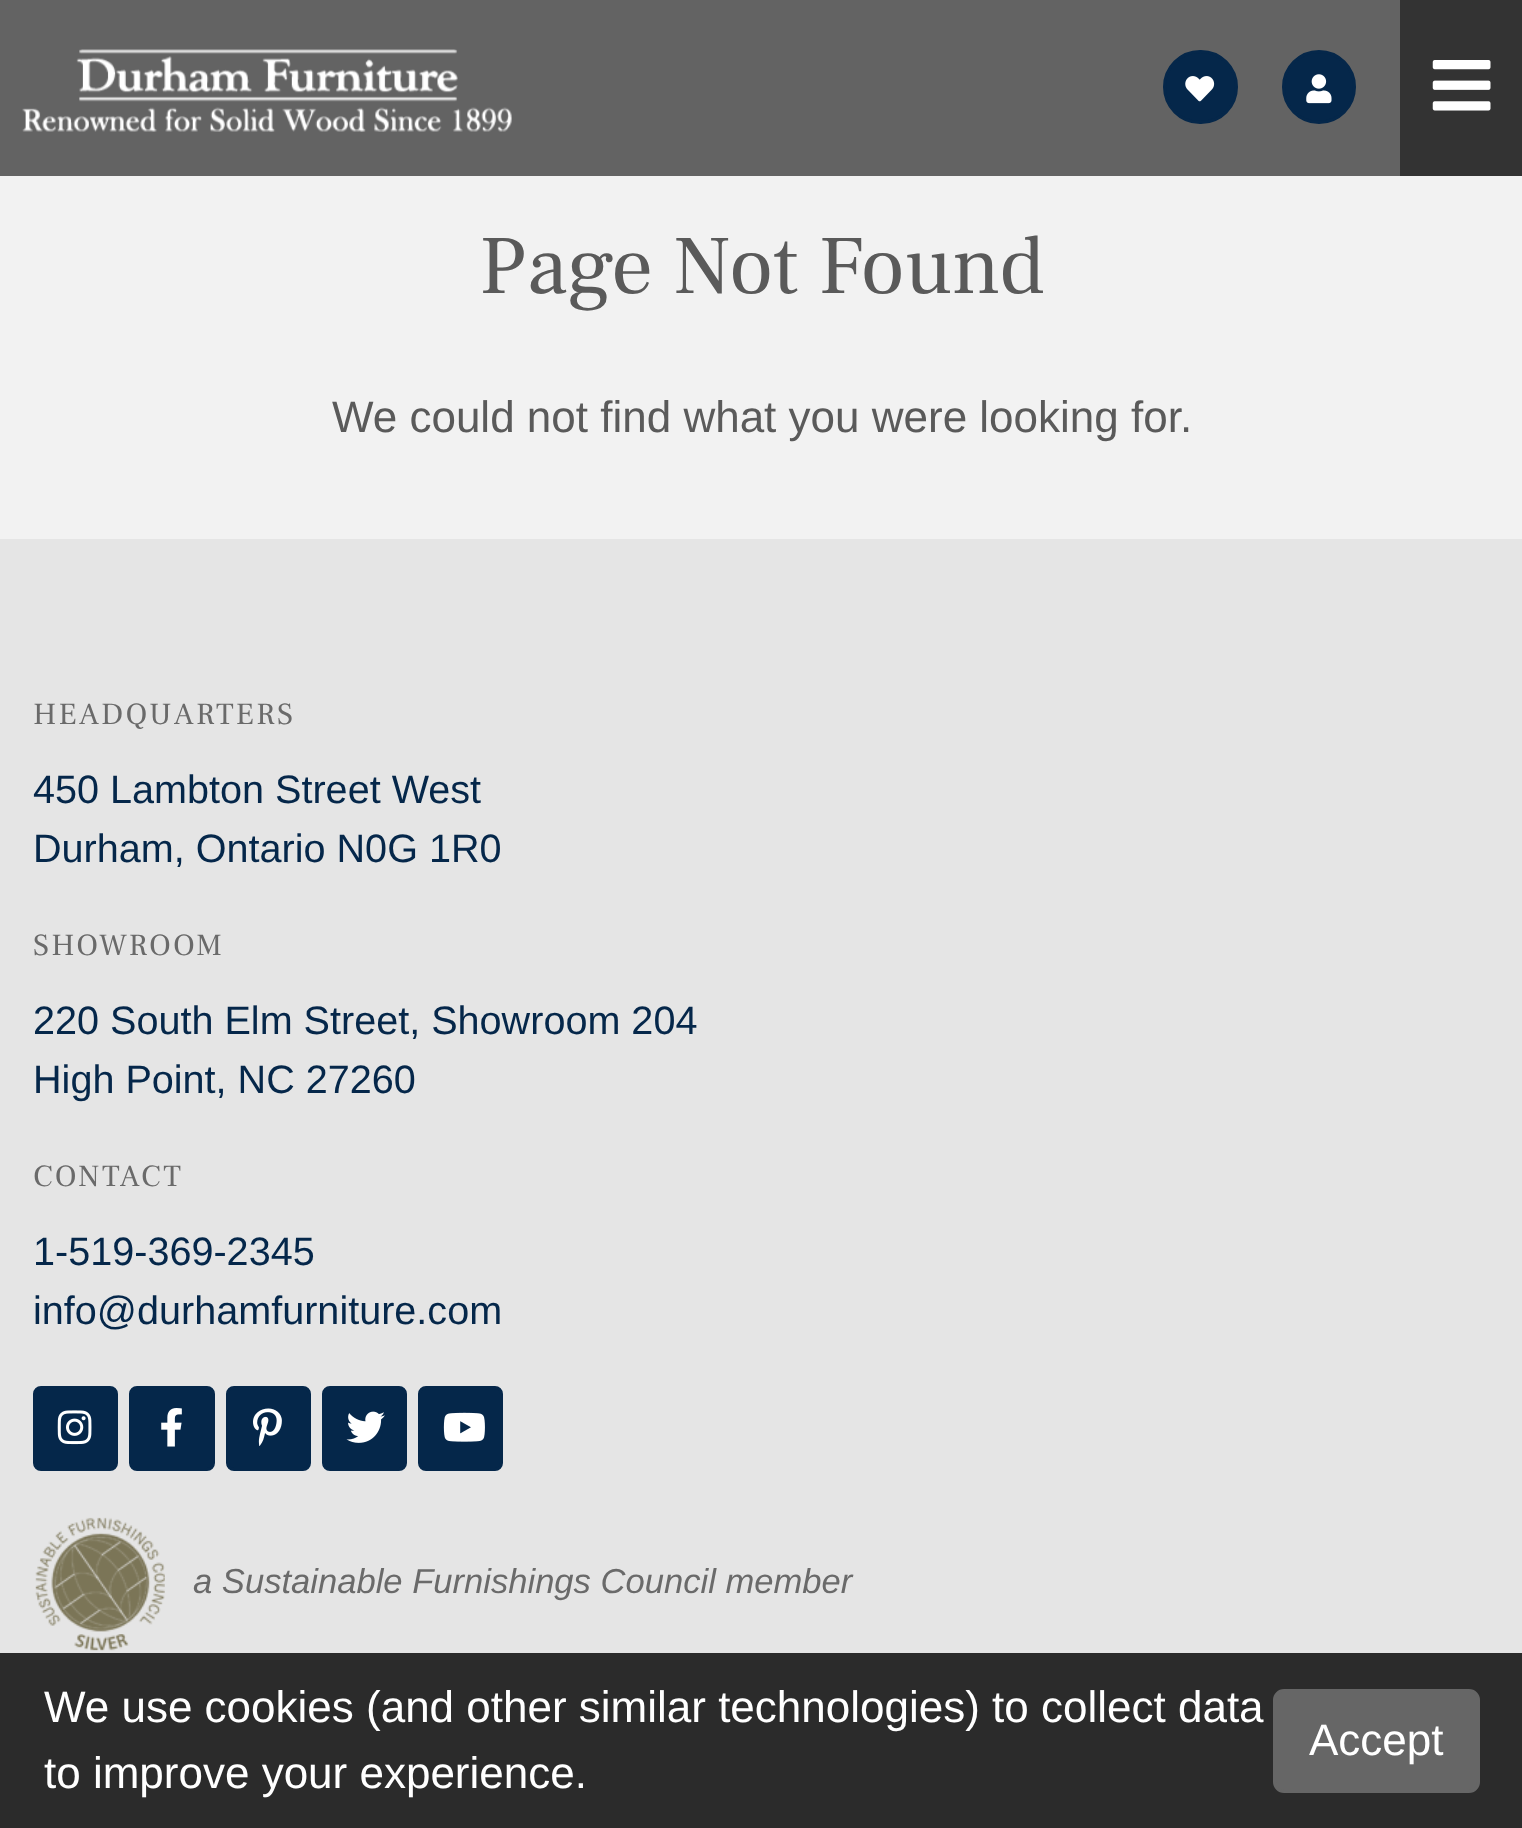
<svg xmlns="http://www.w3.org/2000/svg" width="1522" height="1828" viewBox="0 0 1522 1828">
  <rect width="100%" height="100%" fill="#f2f2f2"/>
  <rect x="0" y="0" width="1400" height="176" fill="#636363"/>
  <image x="22" y="49" width="490" height="83" href="img1.png"/>
  <rect x="1164.5" y="51.5" width="72" height="71" rx="35.5" fill="#05274a" stroke="#05274a" stroke-width="3"/>
  <image x="1185" y="76" width="30" height="26" href="img2.png"/>
  <circle cx="1319" cy="87" r="35.5" fill="#05274a" stroke="#05274a" stroke-width="3"/>
  <image x="1306" y="74" width="26" height="30" href="img3.png"/>
  <rect x="1400" y="0" width="122" height="176" fill="#333333"/>
  <image x="1432" y="60" width="59" height="51" href="img4.png"/>
  <text x="479" y="293" font-family="Frank Ruhl Libre" font-size="83.25" fill="#5a5a5a">Page Not Found</text>
  <text x="332" y="432" font-family="Liberation Sans" font-size="44" fill="#5a5a5a">We could not find what you were looking for.</text>
  <rect x="0" y="539" width="1522" height="1114" fill="#e5e5e5"/>
  <text x="33" y="724" font-family="Frank Ruhl Libre" font-size="30.75" letter-spacing="2.25" fill="#6a6a6a">HEADQUARTERS</text>
  <text x="33" y="803" font-family="Liberation Sans" font-size="39.6" fill="#05274a">450 Lambton Street West</text>
  <text x="33" y="862" font-family="Liberation Sans" font-size="39.6" fill="#05274a">Durham, Ontario N0G 1R0</text>
  <text x="33" y="955" font-family="Frank Ruhl Libre" font-size="30.75" letter-spacing="2.25" fill="#6a6a6a">SHOWROOM</text>
  <text x="33" y="1034" font-family="Liberation Sans" font-size="39.6" fill="#05274a">220 South Elm Street, Showroom 204</text>
  <text x="33" y="1093" font-family="Liberation Sans" font-size="39.6" fill="#05274a">High Point, NC 27260</text>
  <text x="33" y="1186" font-family="Frank Ruhl Libre" font-size="30.75" letter-spacing="2.25" fill="#6a6a6a">CONTACT</text>
  <text x="33" y="1265" font-family="Liberation Sans" font-size="39.6" fill="#05274a">1-519-369-2345</text>
  <text x="33" y="1324" font-family="Liberation Sans" font-size="39.6" fill="#05274a">info@durhamfurniture.com</text>
  <rect x="34.5" y="1387.5" width="82" height="82" rx="6.5" fill="#05274a" stroke="#05274a" stroke-width="3"/>
  <image x="57" y="1410" width="35" height="35" href="img5.png"/>
  <rect x="130.5" y="1387.5" width="83" height="82" rx="6.5" fill="#05274a" stroke="#05274a" stroke-width="3"/>
  <image x="161" y="1408" width="21" height="39" href="img6.png"/>
  <rect x="227.5" y="1387.5" width="82" height="82" rx="6.5" fill="#05274a" stroke="#05274a" stroke-width="3"/>
  <image x="253" y="1408" width="29" height="38" href="img7.png"/>
  <rect x="323.5" y="1387.5" width="82" height="82" rx="6.5" fill="#05274a" stroke="#05274a" stroke-width="3"/>
  <image x="346" y="1411" width="39" height="32" href="img8.png"/>
  <rect x="419.5" y="1387.5" width="82" height="82" rx="6.5" fill="#05274a" stroke="#05274a" stroke-width="3"/>
  <image x="443" y="1412" width="42" height="30" href="img9.png"/>
  <image x="35" y="1517" width="130" height="134" href="img10.png"/>
  <text x="193" y="1593" font-family="Liberation Sans" font-size="34.6" font-style="italic" fill="#6a6a6a">a Sustainable Furnishings Council member</text>
  <rect x="0" y="1653" width="1522" height="175" fill="#2b2b2b"/>
  <text x="44" y="1722" font-family="Liberation Sans" font-size="44" fill="#ffffff">We use cookies (and other similar technologies) to collect data</text>
  <rect x="1274.5" y="1690.5" width="204" height="101" rx="9.5" fill="#666666" stroke="#666666" stroke-width="3"/>
  <text x="1309" y="1755" font-family="Liberation Sans" font-size="44" fill="#ffffff">Accept</text>
  <text x="44" y="1788" font-family="Liberation Sans" font-size="44" fill="#ffffff">to improve your experience.</text>
</svg>
